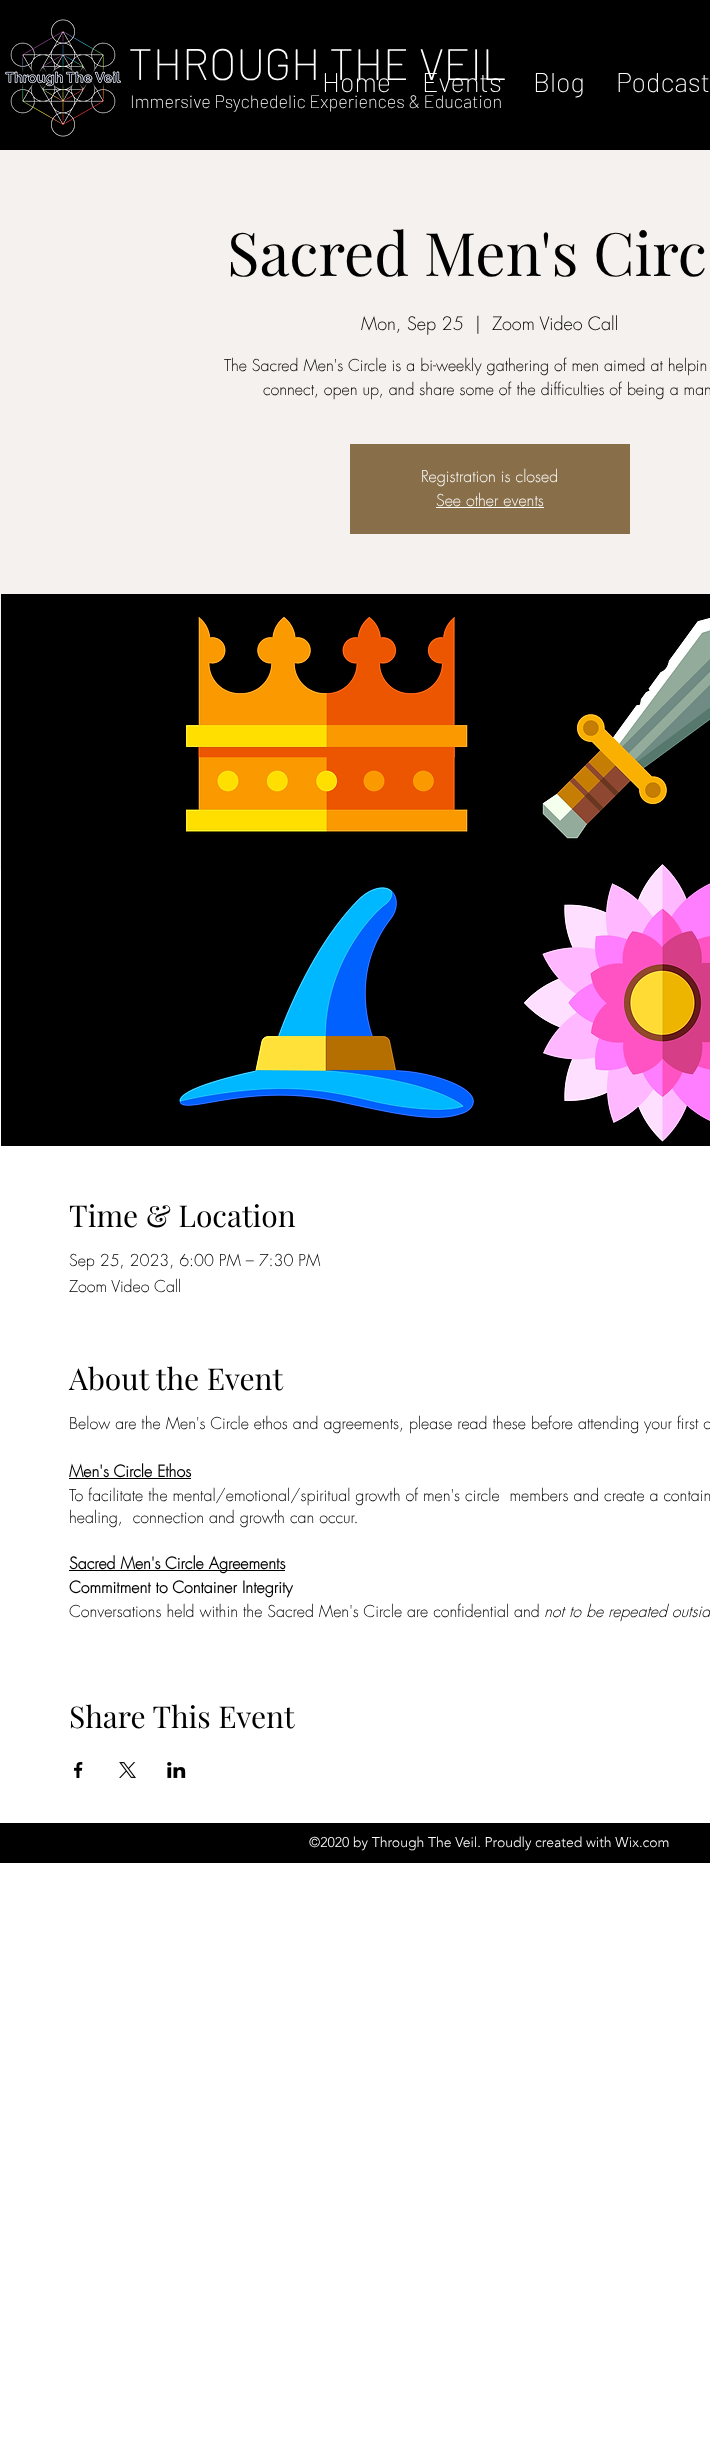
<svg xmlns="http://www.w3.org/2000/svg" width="710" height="2459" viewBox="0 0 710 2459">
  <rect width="100%" height="100%" fill="#ffffff"/>
  <rect x="0" y="0" width="710" height="150" fill="#000000"/>
  <image x="5" y="19" width="116" height="118" href="img1.png"/>
  <text x="128" y="80" font-family="Barlow" font-size="44" font-weight="200" fill="#ffffff">THROUGH THE VEIL</text>
  <text x="130" y="108" font-family="Barlow" font-size="18" font-weight="200" fill="#ffffff">Immersive Psychedelic Experiences &amp; Education</text>
  <text x="322" y="92" font-family="Barlow" font-size="27" font-weight="200" fill="#ffffff">Home</text>
  <rect x="406" y="45" width="1" height="35" fill="#000000"/>
  <text x="422" y="92" font-family="Barlow" font-size="27" font-weight="200" fill="#ffffff">Events</text>
  <text x="533" y="92" font-family="Barlow" font-size="27" font-weight="200" fill="#ffffff">Blog</text>
  <text x="616" y="92" font-family="Barlow" font-size="27" font-weight="200" fill="#ffffff">Podcast</text>
  <rect x="0" y="150" width="710" height="720" fill="#f4f1ee"/>
  <text x="227" y="276" font-family="Playfair Display" font-size="60" fill="#000000">Sacred Men's Circ</text>
  <text x="361" y="330" font-family="futura" font-size="18" font-weight="300" fill="#000000">Mon, Sep 25</text>
  <text x="475" y="330" font-family="futura" font-size="18" font-weight="300" fill="#000000">|</text>
  <text x="492" y="330" font-family="futura" font-size="18" font-weight="300" fill="#000000">Zoom Video Call</text>
  <text x="224" y="371" font-family="futura" font-size="16" font-weight="300" fill="#000000">The Sacred Men's Circle is a bi-weekly gathering of men aimed at helpin</text>
  <text x="263" y="395" font-family="futura" font-size="16" font-weight="300" fill="#000000">connect, open up, and share some of the difficulties of being a man</text>
  <rect x="350" y="444" width="280" height="90" fill="#886f4a"/>
  <text x="421" y="482" font-family="futura" font-size="16" font-weight="300" fill="#ffffff">Registration is closed</text>
  <text x="436" y="506" font-family="futura" font-size="16" font-weight="300" fill="#ffffff">See other events</text>
  <rect x="436" y="507" width="108" height="1" fill="#ffffff"/>
  <image x="1" y="594" width="709" height="552" href="img2.png"/>
  <text x="69" y="1227" font-family="Playfair Display" font-size="30" fill="#000000">Time &amp; Location</text>
  <text x="69" y="1266" font-family="futura" font-size="16" font-weight="300" fill="#000000">Sep 25, 2023, 6:00 PM – 7:30 PM</text>
  <text x="69" y="1292" font-family="futura" font-size="16" font-weight="300" fill="#000000">Zoom Video Call</text>
  <text x="69" y="1390" font-family="Playfair Display" font-size="30" fill="#000000">About the Event</text>
  <text x="69" y="1429" font-family="futura" font-size="16" font-weight="300" fill="#000000">Below are the Men's Circle ethos and agreements, please read these before attending your first c</text>
  <text x="69" y="1477" font-family="futura" font-size="16" font-weight="bold" fill="#000000">Men's Circle Ethos</text>
  <rect x="69" y="1478" width="122" height="1" fill="#000000"/>
  <text x="69" y="1501" font-family="futura" font-size="16" font-weight="300" fill="#000000" xml:space="preserve">To facilitate the mental/emotional/spiritual growth of men's circle  members and create a contain</text>
  <text x="69" y="1523" font-family="futura" font-size="16" font-weight="300" fill="#000000" xml:space="preserve">healing,  connection and growth can occur.</text>
  <rect x="69" y="1570" width="216" height="1" fill="#000000"/>
  <text x="69" y="1569" font-family="futura" font-size="16" font-weight="bold" fill="#000000">Sacred Men's Circle Agreements</text>
  <text x="69" y="1593" font-family="futura" font-size="16" font-weight="bold" fill="#000000">Commitment to Container Integrity</text>
  <text x="69" y="1617" font-family="futura" font-size="16" font-weight="300" fill="#000000">Conversations held within the Sacred Men's Circle are confidential and</text>
  <text x="544" y="1617" font-family="futura" font-size="16" font-weight="300" font-style="italic" fill="#000000">not to be repeated outsid</text>
  <text x="69" y="1728" font-family="Playfair Display" font-size="30" fill="#000000">Share This Event</text>
  <image x="74" y="1762" width="9" height="16" href="img3.png"/>
  <image x="119" y="1762" width="17" height="16" href="img4.png"/>
  <image x="167" y="1762" width="19" height="16" href="img5.png"/>
  <rect x="0" y="1823" width="710" height="40" fill="#000000"/>
  <text x="309" y="1847" font-family="'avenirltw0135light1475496'" font-size="14" font-weight="300" fill="#ffffff">©2020 by Through The Veil. Proudly created with Wix.com</text>
</svg>
